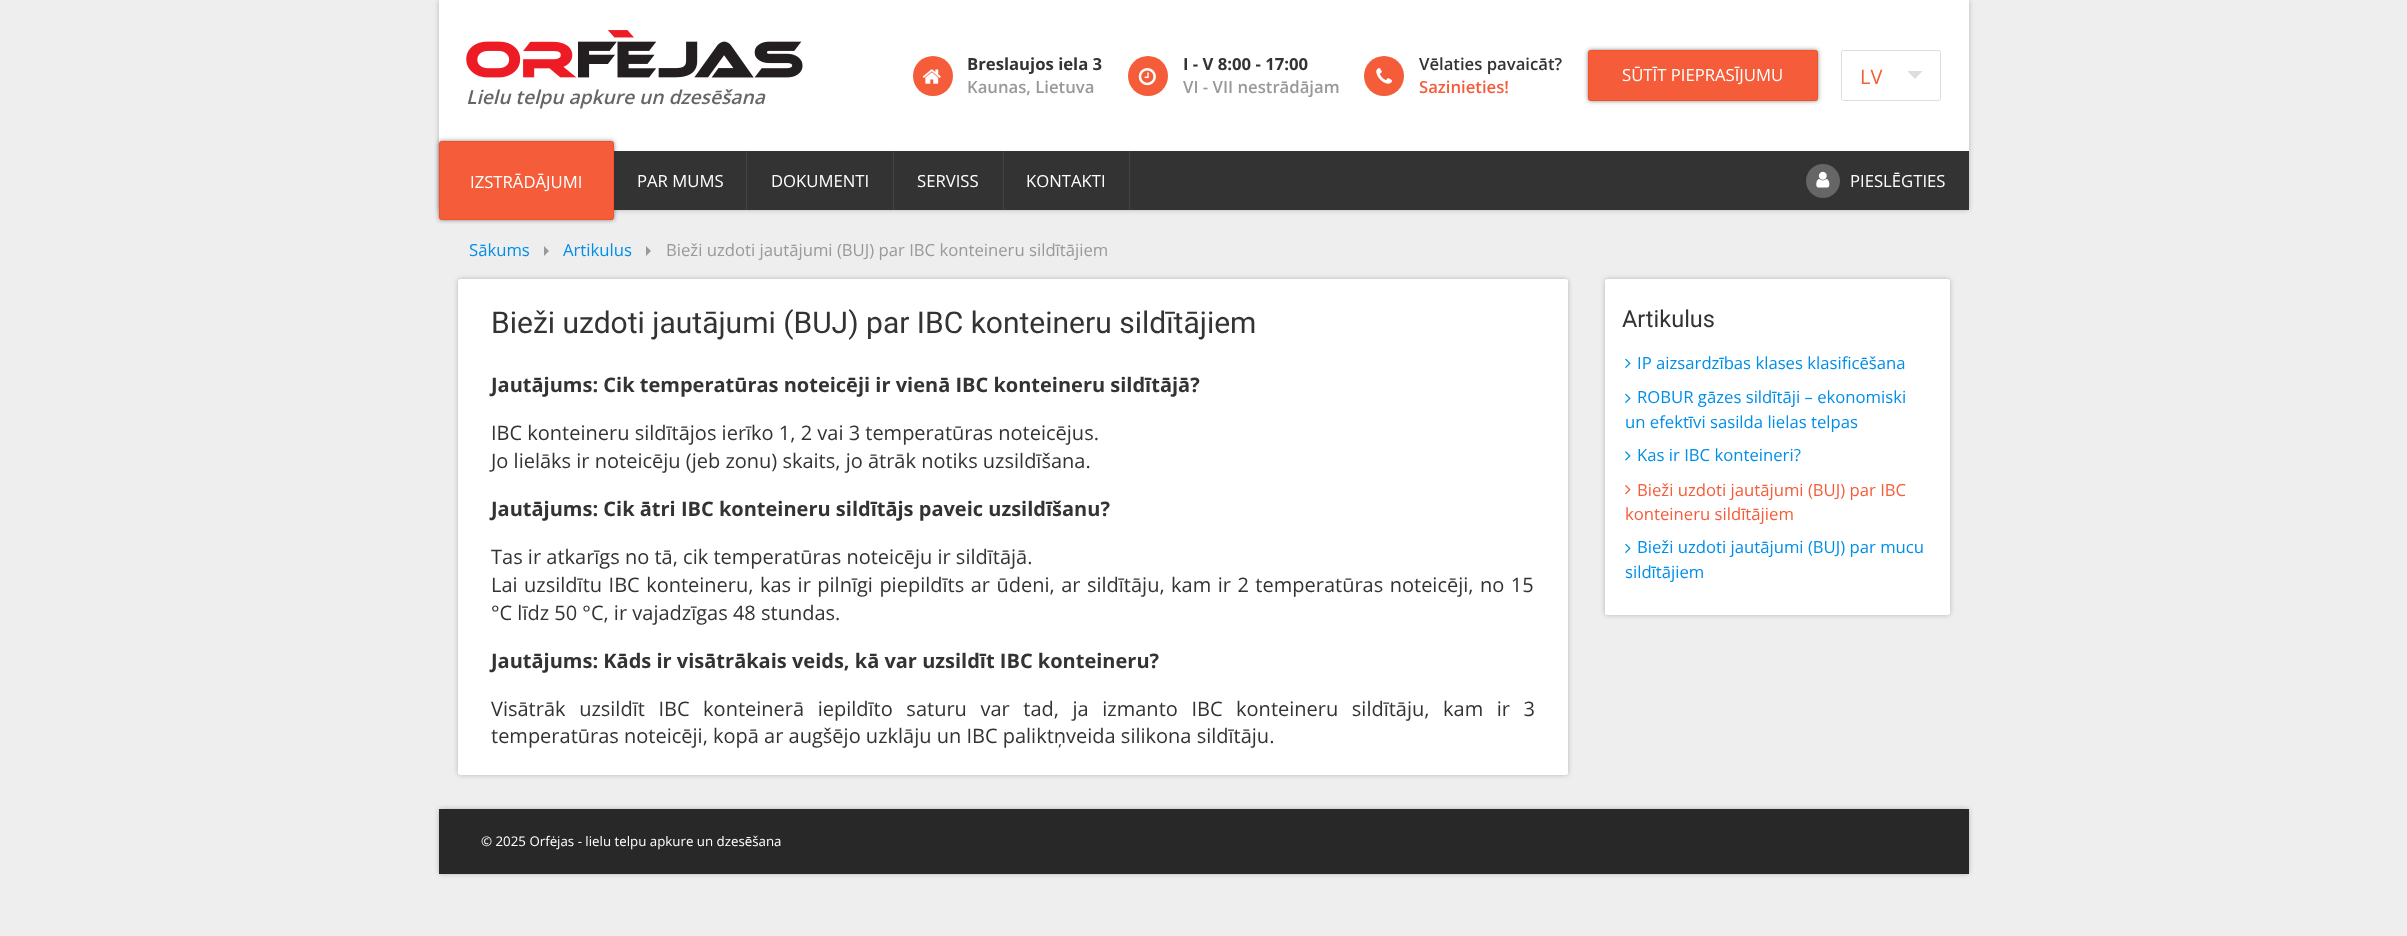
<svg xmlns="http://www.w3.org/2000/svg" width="2407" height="936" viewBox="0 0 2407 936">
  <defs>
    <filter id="blur1" x="-50%" y="-200%" width="200%" height="500%"><feGaussianBlur stdDeviation="2.5"/></filter>
    <filter id="blur2" x="-50%" y="-200%" width="200%" height="500%"><feGaussianBlur stdDeviation="2"/></filter>
  </defs>
  <rect width="100%" height="100%" fill="#eeeeee"/>
  <rect x="439" y="0" width="1530" height="210" rx="2.5" fill="#000000" fill-opacity="0.24" filter="url(#blur1)"/>
  <rect x="439" y="0" width="1530" height="151" fill="#ffffff"/>
  <circle cx="933" cy="76" r="20" fill="#f55c39"/>
  <image x="922" y="69" width="19" height="15" href="img1.png"/>
  <text x="967" y="70" font-family="Open Sans" font-size="16.7" font-weight="bold" fill="#333333">Breslaujos iela 3</text>
  <text x="967" y="93" font-family="Open Sans" font-size="16.7" font-weight="600" fill="#999999">Kaunas, Lietuva</text>
  <circle cx="1148" cy="76" r="20" fill="#f55c39"/>
  <image x="1138" y="68" width="18" height="18" href="img2.png"/>
  <text x="1183" y="70" font-family="Open Sans" font-size="16.7" font-weight="bold" fill="#333333">I - V 8:00 - 17:00</text>
  <text x="1183" y="93" font-family="Open Sans" font-size="16.7" font-weight="600" fill="#999999">VI - VII nestrādājam</text>
  <circle cx="1384" cy="76" r="20" fill="#f55c39"/>
  <image x="1376" y="68" width="16" height="16" href="img3.png"/>
  <text x="1419" y="70" font-family="Open Sans" font-size="16.7" font-weight="600" fill="#333333">Vēlaties pavaicāt?</text>
  <text x="1419" y="93" font-family="Open Sans" font-size="16.7" font-weight="600" fill="#f55c39">Sazinieties!</text>
  <rect x="1588" y="50" width="230" height="51" rx="2.5" fill="#333333" fill-opacity="0.6" filter="url(#blur2)"/>
  <rect x="1588.5" y="50.5" width="229" height="50" rx="2" fill="#f55c39" stroke="#f4502a"/>
  <text x="1622" y="81" font-family="Open Sans" font-size="16.7" fill="#ffffff">SŪTĪT PIEPRASĪJUMU</text>
  <rect x="1841.5" y="50.5" width="99" height="50" rx="2" fill="none" stroke="#dddddd"/>
  <text x="1860" y="84" font-family="Open Sans" font-size="20" fill="#f55c39">LV</text>
  <path d="M1907.5 71H1922.5L1915 79Z" fill="#dddddd"/>
  <image x="466" y="30" width="337" height="48" href="img4.png"/>
  <text x="466" y="104" font-family="Open Sans" font-size="19.2" font-weight="600" font-style="italic" fill="#666666">Lielu telpu apkure un dzesēšana</text>
  <rect x="614" y="151" width="1355" height="59" fill="#333333"/>
  <rect x="439" y="141" width="175" height="79" rx="2.5" fill="#333333" fill-opacity="0.6" filter="url(#blur2)"/>
  <rect x="439.5" y="141.5" width="174" height="78" rx="2" fill="#f55c39" stroke="#f4502a"/>
  <text x="470" y="188" font-family="Open Sans" font-size="16.7" fill="#ffffff">IZSTRĀDĀJUMI</text>
  <rect x="746" y="151" width="1" height="59" fill="#434343"/>
  <text x="637" y="187" font-family="Open Sans" font-size="16.7" fill="#ffffff">PAR MUMS</text>
  <rect x="893" y="151" width="1" height="59" fill="#434343"/>
  <text x="771" y="187" font-family="Open Sans" font-size="16.7" fill="#ffffff">DOKUMENTI</text>
  <rect x="1003" y="151" width="1" height="59" fill="#434343"/>
  <text x="917" y="187" font-family="Open Sans" font-size="16.7" fill="#ffffff">SERVISS</text>
  <rect x="1129" y="151" width="1" height="59" fill="#434343"/>
  <text x="1026" y="187" font-family="Open Sans" font-size="16.7" fill="#ffffff">KONTAKTI</text>
  <circle cx="1823" cy="181" r="17" fill="#666666"/>
  <image x="1816" y="171" width="14" height="17" href="img5.png"/>
  <text x="1850" y="187" font-family="Open Sans" font-size="16.7" fill="#ffffff">PIESLĒGTIES</text>
  <text x="469" y="256" font-family="Open Sans" font-size="16.7" fill="#008ee8">Sākums</text>
  <path d="M544 256V246L549 251Z" fill="#999999"/>
  <text x="563" y="256" font-family="Open Sans" font-size="16.7" fill="#008ee8">Artikulus</text>
  <path d="M646 256V246L651 251Z" fill="#999999"/>
  <text x="666" y="256" font-family="Open Sans" font-size="16.7" fill="#999999">Bieži uzdoti jautājumi (BUJ) par IBC konteineru sildītājiem</text>
  <rect x="458" y="279" width="1110" height="496" rx="2.5" fill="#000000" fill-opacity="0.24" filter="url(#blur1)"/>
  <rect x="458" y="279" width="1110" height="496" rx="2.5" fill="#ffffff"/>
  <text x="491" y="333" font-family="Roboto" font-size="30" fill="#333333">Bieži uzdoti jautājumi (BUJ) par IBC konteineru sildītājiem</text>
  <text x="491" y="392" font-family="Open Sans" font-size="20" font-weight="bold" fill="#333333">Jautājums: Cik temperatūras noteicēji ir vienā IBC konteineru sildītājā?</text>
  <text x="491" y="440" font-family="Open Sans" font-size="20" fill="#333333">IBC konteineru sildītājos ierīko 1, 2 vai 3 temperatūras noteicējus.</text>
  <text x="491" y="468" font-family="Open Sans" font-size="20" fill="#333333">Jo lielāks ir noteicēju (jeb zonu) skaits, jo ātrāk notiks uzsildīšana.</text>
  <text x="491" y="516" font-family="Open Sans" font-size="20" font-weight="bold" fill="#333333">Jautājums: Cik ātri IBC konteineru sildītājs paveic uzsildīšanu?</text>
  <text x="491" y="564" font-family="Open Sans" font-size="20" fill="#333333">Tas ir atkarīgs no tā, cik temperatūras noteicēju ir sildītājā.</text>
  <text x="491" y="592" word-spacing="1.3" font-family="Open Sans" font-size="20" fill="#333333">Lai uzsildītu IBC konteineru, kas ir pilnīgi piepildīts ar ūdeni, ar sildītāju, kam ir 2 temperatūras noteicēji, no 15</text>
  <text x="491" y="620" font-family="Open Sans" font-size="20" fill="#333333">°C līdz 50 °C, ir vajadzīgas 48 stundas.</text>
  <text x="491" y="668" font-family="Open Sans" font-size="20" font-weight="bold" fill="#333333">Jautājums: Kāds ir visātrākais veids, kā var uzsildīt IBC konteineru?</text>
  <text x="491" y="716" word-spacing="8.4" font-family="Open Sans" font-size="20" fill="#333333">Visātrāk uzsildīt IBC konteinerā iepildīto saturu var tad, ja izmanto IBC konteineru sildītāju, kam ir 3</text>
  <text x="491" y="743" font-family="Open Sans" font-size="20" fill="#333333">temperatūras noteicēji, kopā ar augšējo uzklāju un IBC paliktņveida silikona sildītāju.</text>
  <rect x="1605" y="279" width="345" height="336" rx="2.5" fill="#000000" fill-opacity="0.24" filter="url(#blur1)"/>
  <rect x="1605" y="279" width="345" height="336" rx="2.5" fill="#ffffff"/>
  <text x="1622" y="327" font-family="Roboto" font-size="23.5" fill="#333333">Artikulus</text>
  <image x="1625" y="358" width="6" height="10" href="img6.png"/>
  <text x="1637" y="369" font-family="Open Sans" font-size="16.7" fill="#008ee8">IP aizsardzības klases klasificēšana</text>
  <image x="1625" y="393" width="6" height="10" href="img6.png"/>
  <text x="1637" y="403" font-family="Open Sans" font-size="16.7" fill="#008ee8">ROBUR gāzes sildītāji – ekonomiski</text>
  <text x="1625" y="428" font-family="Open Sans" font-size="16.7" fill="#008ee8">un efektīvi sasilda lielas telpas</text>
  <image x="1625" y="451" width="6" height="10" href="img7.png"/>
  <text x="1637" y="461" font-family="Open Sans" font-size="16.7" fill="#008ee8">Kas ir IBC konteineri?</text>
  <image x="1625" y="485" width="6" height="10" href="img8.png"/>
  <text x="1637" y="496" font-family="Open Sans" font-size="16.7" fill="#f55c39">Bieži uzdoti jautājumi (BUJ) par IBC</text>
  <text x="1625" y="520" font-family="Open Sans" font-size="16.7" fill="#f55c39">konteineru sildītājiem</text>
  <image x="1625" y="543" width="6" height="10" href="img6.png"/>
  <text x="1637" y="553" font-family="Open Sans" font-size="16.7" fill="#008ee8">Bieži uzdoti jautājumi (BUJ) par mucu</text>
  <text x="1625" y="578" font-family="Open Sans" font-size="16.7" fill="#008ee8">sildītājiem</text>
  <rect x="439" y="809" width="1530" height="65" rx="2.5" fill="#000000" fill-opacity="0.24" filter="url(#blur1)"/>
  <rect x="439" y="809" width="1530" height="65" fill="#282828"/>
  <text x="481" y="846" font-family="Open Sans" font-size="13.3" fill="#ffffff">© 2025 Orfėjas - lielu telpu apkure un dzesēšana</text>
</svg>
